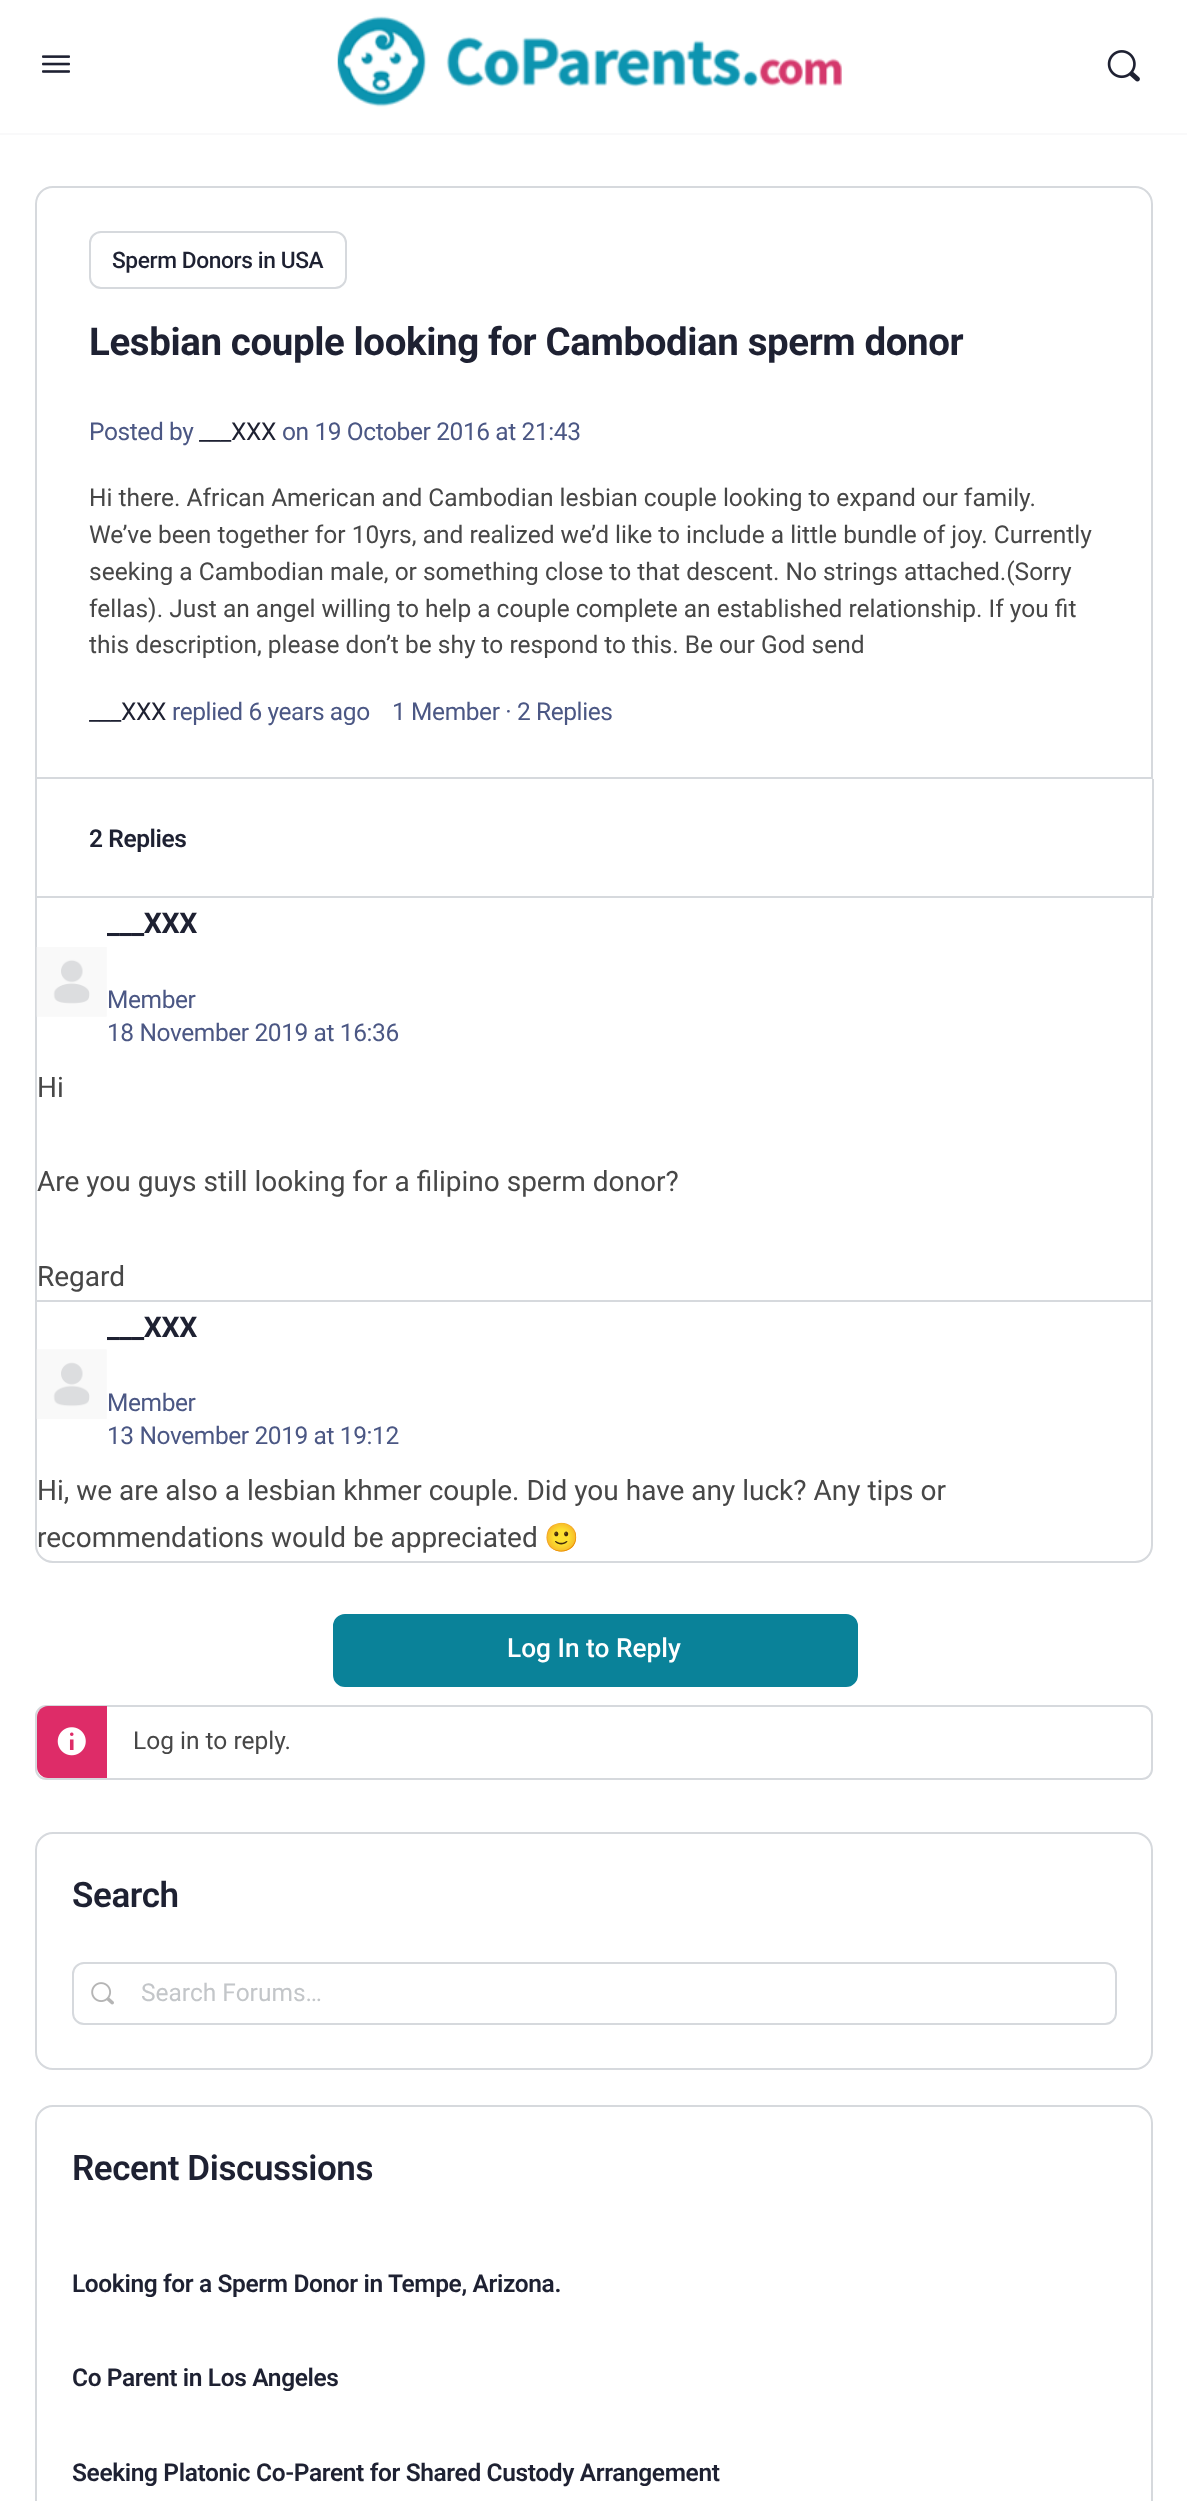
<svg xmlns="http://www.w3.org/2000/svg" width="1187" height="2501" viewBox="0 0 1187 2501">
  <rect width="100%" height="100%" fill="#ffffff"/>
  <rect x="0" y="133" width="1187" height="2" fill="#8b8d9d" fill-opacity="0.05"/>
  <image x="42" y="55" width="28" height="18" href="img1.png"/>
  <image x="337" y="16" width="505" height="91" href="img2.png"/>
  <image x="1107" y="50" width="33" height="32" href="img3.png"/>
  <path d="M53 187H1135C1144.5 187 1152 194.5 1152 204V778H36V204C36 194.5 43.5 187 53 187Z" fill="none" stroke="#d6d9dd" stroke-width="2"/>
  <rect x="90" y="232" width="256" height="56" rx="11" fill="none" stroke="#d6d9dd" stroke-width="2"/>
  <text x="112" y="268" font-family="Roboto" font-size="22.75" font-weight="500" letter-spacing="-0.4" fill="#1e2132">Sperm Donors in USA</text>
  <text x="89" y="355" font-family="Roboto" font-size="38.5" font-weight="bold" letter-spacing="-0.4" fill="#1e2132">Lesbian couple looking for Cambodian sperm donor</text>
  <text x="89" y="440" font-family="Roboto" font-size="24.5" letter-spacing="-0.4" fill="#4b5784">Posted by</text>
  <text x="199" y="440" font-family="Roboto" font-size="24.5" letter-spacing="-0.4" fill="#1e2132">___XXX</text>
  <text x="282" y="440" font-family="Roboto" font-size="24.5" letter-spacing="-0.4" fill="#4b5784">on 19 October 2016 at 21:43</text>
  <text x="89" y="506" font-family="Roboto" font-size="24.5" fill="#474747">Hi there. African American and Cambodian lesbian couple looking to expand our family.</text>
  <text x="89" y="543" font-family="Roboto" font-size="24.5" fill="#474747">We’ve been together for 10yrs, and realized we’d like to include a little bundle of joy. Currently</text>
  <text x="89" y="580" font-family="Roboto" font-size="24.5" fill="#474747">seeking a Cambodian male, or something close to that descent. No strings attached.(Sorry</text>
  <text x="89" y="617" font-family="Roboto" font-size="24.5" fill="#474747">fellas). Just an angel willing to help a couple complete an established relationship. If you fit</text>
  <text x="89" y="653" font-family="Roboto" font-size="24.5" fill="#474747">this description, please don’t be shy to respond to this. Be our God send</text>
  <text x="89" y="720" font-family="Roboto" font-size="24.5" letter-spacing="-0.4" fill="#1e2132">___XXX</text>
  <text x="172" y="720" font-family="Roboto" font-size="24.5" letter-spacing="-0.4" fill="#4b5784">replied 6 years ago</text>
  <text x="392" y="720" font-family="Roboto" font-size="24.5" letter-spacing="-0.4" fill="#4b5784">1 Member · 2 Replies</text>
  <rect x="1152" y="779" width="2" height="119" fill="#d6d9dd"/>
  <rect x="35" y="779" width="2" height="119" fill="#d6d9dd"/>
  <text x="89" y="847" font-family="Roboto" font-size="24.5" font-weight="600" letter-spacing="-0.4" fill="#1e2132">2 Replies</text>
  <rect x="36" y="897" width="1116" height="404" fill="none" stroke="#d6d9dd" stroke-width="2"/>
  <image x="36" y="947" width="71" height="70" href="img4.png"/>
  <text x="107" y="933" font-family="Roboto" font-size="28.5" font-weight="bold" letter-spacing="-0.4" fill="#1e2132">___XXX</text>
  <text x="107" y="1008" font-family="Roboto" font-size="24.5" letter-spacing="-0.4" fill="#4b5784">Member</text>
  <text x="107" y="1041" font-family="Roboto" font-size="24.5" letter-spacing="-0.4" fill="#4b5784">18 November 2019 at 16:36</text>
  <text x="37" y="1097" font-family="Roboto" font-size="28" fill="#474747">Hi</text>
  <text x="37" y="1191" font-family="Roboto" font-size="28" fill="#474747">Are you guys still looking for a filipino sperm donor?</text>
  <text x="37" y="1286" font-family="Roboto" font-size="28" fill="#474747">Regard</text>
  <path d="M36 1301H1152V1545C1152 1554.5 1144.5 1562 1135 1562H53C43.5 1562 36 1554.5 36 1545Z" fill="#ffffff" stroke="#d6d9dd" stroke-width="2"/>
  <image x="36" y="1349" width="71" height="70" href="img5.png"/>
  <text x="107" y="1337" font-family="Roboto" font-size="28.5" font-weight="bold" letter-spacing="-0.4" fill="#1e2132">___XXX</text>
  <text x="107" y="1411" font-family="Roboto" font-size="24.5" letter-spacing="-0.4" fill="#4b5784">Member</text>
  <text x="107" y="1444" font-family="Roboto" font-size="24.5" letter-spacing="-0.4" fill="#4b5784">13 November 2019 at 19:12</text>
  <text x="37" y="1500" font-family="Roboto" font-size="28" fill="#474747">Hi, we are also a lesbian khmer couple. Did you have any luck? Any tips or</text>
  <text x="37" y="1547" font-family="Roboto" font-size="28" fill="#474747">recommendations would be appreciated</text>
  <text x="544" y="1547" font-family="Noto Color Emoji" font-size="28" fill="#474747">🙂</text>
  <rect x="334" y="1615" width="523" height="71" rx="11" fill="#0a8299" stroke="#0a8299" stroke-width="2"/>
  <text x="507" y="1657" font-family="Roboto" font-size="26.25" font-weight="500" fill="#ffffff">Log In to Reply</text>
  <rect x="36" y="1706" width="1116" height="73" rx="10" fill="none" stroke="#d6d9dd" stroke-width="2"/>
  <path d="M48 1706H107V1778H48C42 1778 37 1773 37 1767V1717C37 1711 42 1706 48 1706Z" fill="#de2c68"/>
  <image x="57" y="1727" width="29" height="29" href="img6.png"/>
  <text x="133" y="1749" font-family="Roboto" font-size="24.5" fill="#474747">Log in to reply.</text>
  <rect x="36" y="1833" width="1116" height="236" rx="17" fill="none" stroke="#d6d9dd" stroke-width="2"/>
  <text x="72" y="1907" font-family="Roboto" font-size="35" font-weight="600" letter-spacing="-0.4" fill="#1e2132">Search</text>
  <rect x="73" y="1963" width="1043" height="61" rx="11" fill="none" stroke="#d6d9dd" stroke-width="2"/>
  <image x="91" y="1982" width="23" height="23" href="img7.png"/>
  <text x="141" y="2001" font-family="Roboto" font-size="24.5" fill="#c3c6c9">Search Forums…</text>
  <rect x="36" y="2106" width="1116" height="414" rx="17" fill="none" stroke="#d6d9dd" stroke-width="2"/>
  <text x="72" y="2180" font-family="Roboto" font-size="35" font-weight="600" letter-spacing="-0.4" fill="#1e2132">Recent Discussions</text>
  <text x="72" y="2292" font-family="Roboto" font-size="24.5" font-weight="600" letter-spacing="-0.37" fill="#1e2132">Looking for a Sperm Donor in Tempe, Arizona.</text>
  <text x="72" y="2386" font-family="Roboto" font-size="24.5" font-weight="600" letter-spacing="-0.37" fill="#1e2132">Co Parent in Los Angeles</text>
  <text x="72" y="2481" font-family="Roboto" font-size="24.5" font-weight="600" letter-spacing="-0.37" fill="#1e2132">Seeking Platonic Co-Parent for Shared Custody Arrangement</text>
</svg>
